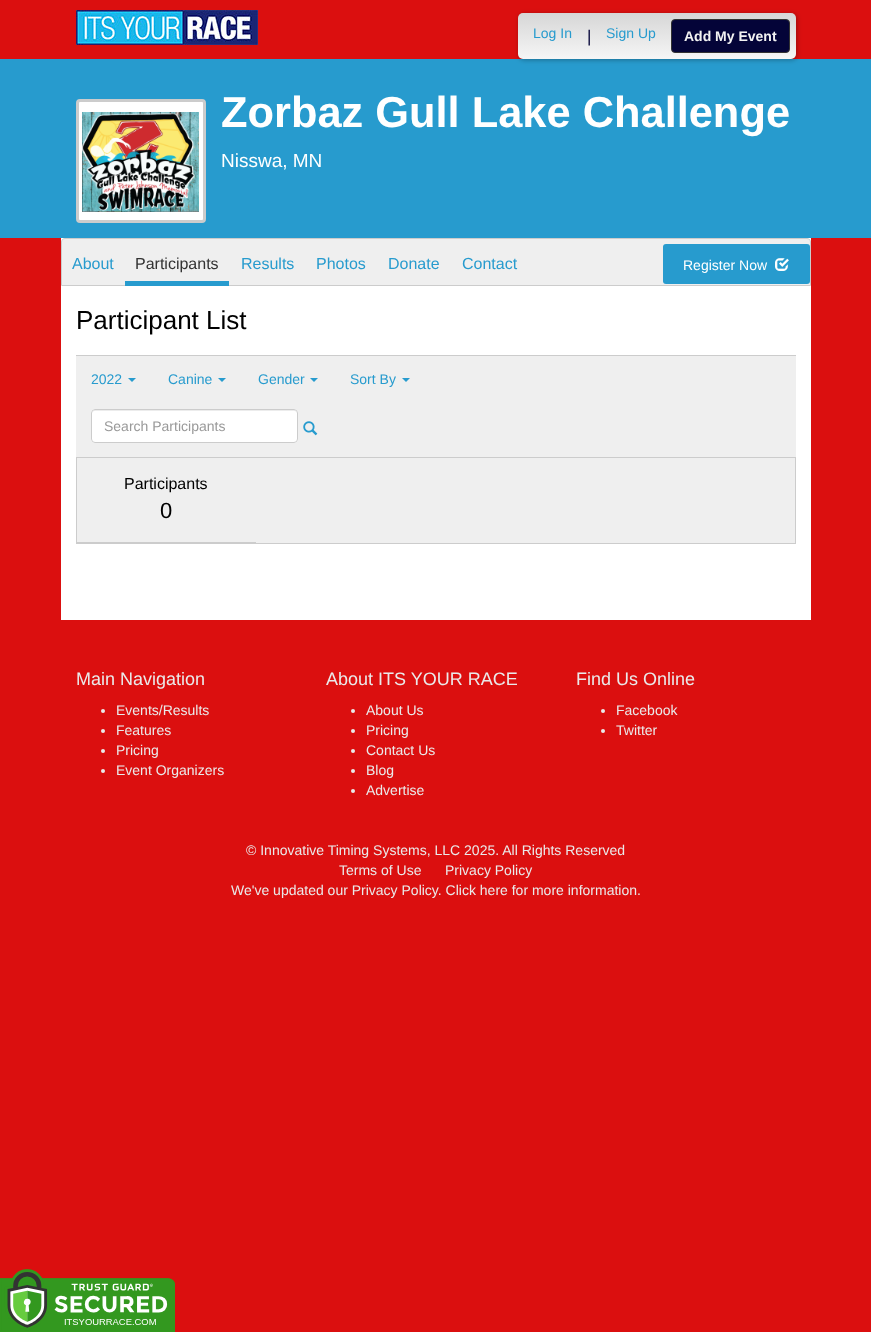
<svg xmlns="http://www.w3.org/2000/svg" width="871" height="1332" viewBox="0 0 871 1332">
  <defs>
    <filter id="blur1" x="-50%" y="-200%" width="200%" height="500%"><feGaussianBlur stdDeviation="2.5"/></filter>
    <linearGradient id="g1" gradientUnits="userSpaceOnUse" x1="657" y1="13" x2="657" y2="59"><stop offset="0" stop-color="#d6d6d6"/><stop offset="1" stop-color="#f6f6f6"/></linearGradient>
  </defs>
  <rect width="100%" height="100%" fill="#db0f0f"/>
  <image x="76" y="10" width="182" height="35" href="img1.png"/>
  <rect x="0" y="59" width="871" height="179" fill="#279bce"/>
  <rect x="519" y="14" width="278" height="46" rx="5" fill="#000000" fill-opacity="0.3" filter="url(#blur1)"/>
  <rect x="518" y="13" width="278" height="46" rx="5" fill="url(#g1)"/>
  <text x="533" y="38" font-family="Liberation Sans" font-size="14" fill="#279bce">Log In</text>
  <text x="587" y="42" font-family="Liberation Sans" font-size="17" fill="#040438">|</text>
  <text x="606" y="38" font-family="Liberation Sans" font-size="14" fill="#279bce">Sign Up</text>
  <rect x="671.5" y="19.5" width="118" height="33" rx="3.5" fill="#040438" stroke="#333333"/>
  <text x="684" y="41" font-family="Liberation Sans" font-size="14" font-weight="bold" fill="#f2f2f2">Add My Event</text>
  <rect x="77.5" y="100.5" width="127" height="121" rx="2.5" fill="#ffffff" stroke="#cccccc" stroke-width="3"/>
  <image x="82" y="112" width="117" height="100" href="img2.png"/>
  <text x="221" y="127" font-family="Liberation Sans" font-size="43.4" font-weight="bold" fill="#ffffff">Zorbaz Gull Lake Challenge</text>
  <text x="221" y="167" font-family="Liberation Sans" font-size="19" fill="#ffffff">Nisswa, MN</text>
  <rect x="61" y="238" width="750" height="382" fill="#ffffff"/>
  <path d="M65 238.5H807C809 238.5 810.5 240 810.5 242V285.5H61.5V242C61.5 240 63 238.5 65 238.5Z" fill="#efefef" stroke="#cccccc"/>
  <text x="72" y="269" font-family="Liberation Sans" font-size="16" fill="#279bce">About</text>
  <rect x="125" y="281" width="104" height="5" fill="#279bce"/>
  <text x="135" y="269" font-family="Liberation Sans" font-size="16" fill="#333333">Participants</text>
  <text x="241" y="269" font-family="Liberation Sans" font-size="16" fill="#279bce">Results</text>
  <text x="316" y="269" font-family="Liberation Sans" font-size="16" fill="#279bce">Photos</text>
  <text x="388" y="269" font-family="Liberation Sans" font-size="16" fill="#279bce">Donate</text>
  <text x="462" y="269" font-family="Liberation Sans" font-size="16" fill="#279bce">Contact</text>
  <rect x="663" y="244" width="147" height="40" rx="3" fill="#279bce"/>
  <text x="683" y="270" font-family="Liberation Sans" font-size="14" fill="#ffffff">Register Now</text>
  <image x="775" y="258" width="14" height="13" href="img3.png"/>
  <text x="76" y="329" font-family="Liberation Sans" font-size="26" fill="#000000">Participant List</text>
  <rect x="76" y="356" width="720" height="101" fill="#efefef"/>
  <rect x="76" y="355" width="720" height="1" fill="#cccccc"/>
  <text x="91" y="384" font-family="Liberation Sans" font-size="14" fill="#279bce">2022</text>
  <path d="M128 378H136L132 382Z" fill="#279bce"/>
  <text x="168" y="384" font-family="Liberation Sans" font-size="14" fill="#279bce">Canine</text>
  <path d="M218 378H226L222 382Z" fill="#279bce"/>
  <text x="258" y="384" font-family="Liberation Sans" font-size="14" fill="#279bce">Gender</text>
  <path d="M310 378H318L314 382Z" fill="#279bce"/>
  <text x="350" y="384" font-family="Liberation Sans" font-size="14" fill="#279bce">Sort By</text>
  <path d="M402 378H410L406 382Z" fill="#279bce"/>
  <rect x="91" y="409" width="207" height="34" rx="4" fill="#ffffff"/>
  <path d="M95 411H294C296 411 297 412 297 414C297 412 296 410 294 410H95C93 410 92 412 92 414C92 412 93 411 95 411Z" fill="#ececec"/>
  <rect x="91.5" y="409.5" width="206" height="33" rx="3.5" fill="none" stroke="#cccccc"/>
  <text x="104" y="431" font-family="Liberation Sans" font-size="14" fill="#999999">Search Participants</text>
  <image x="303" y="421" width="15" height="15" href="img4.png"/>
  <rect x="76.5" y="457.5" width="719" height="86" fill="#efefef" stroke="#cccccc"/>
  <rect x="77" y="542" width="179" height="1" fill="#cccccc"/>
  <text x="124" y="489" font-family="Liberation Sans" font-size="16" fill="#000000">Participants</text>
  <text x="160" y="518" font-family="Liberation Sans" font-size="22" fill="#000000">0</text>
  <text x="76" y="685" font-family="Liberation Sans" font-size="18" fill="#eaeaea">Main Navigation</text>
  <circle cx="103" cy="711" r="2" fill="#eaeaea"/>
  <text x="116" y="715" font-family="Liberation Sans" font-size="14" fill="#eaeaea">Events/Results</text>
  <circle cx="103" cy="731" r="2" fill="#eaeaea"/>
  <text x="116" y="735" font-family="Liberation Sans" font-size="14" fill="#eaeaea">Features</text>
  <circle cx="103" cy="751" r="2" fill="#eaeaea"/>
  <text x="116" y="755" font-family="Liberation Sans" font-size="14" fill="#eaeaea">Pricing</text>
  <circle cx="103" cy="771" r="2" fill="#eaeaea"/>
  <text x="116" y="775" font-family="Liberation Sans" font-size="14" fill="#eaeaea">Event Organizers</text>
  <text x="326" y="685" font-family="Liberation Sans" font-size="18" fill="#eaeaea">About ITS YOUR RACE</text>
  <circle cx="353" cy="711" r="2" fill="#eaeaea"/>
  <text x="366" y="715" font-family="Liberation Sans" font-size="14" fill="#eaeaea">About Us</text>
  <circle cx="353" cy="731" r="2" fill="#eaeaea"/>
  <text x="366" y="735" font-family="Liberation Sans" font-size="14" fill="#eaeaea">Pricing</text>
  <circle cx="353" cy="751" r="2" fill="#eaeaea"/>
  <text x="366" y="755" font-family="Liberation Sans" font-size="14" fill="#eaeaea">Contact Us</text>
  <circle cx="353" cy="771" r="2" fill="#eaeaea"/>
  <text x="366" y="775" font-family="Liberation Sans" font-size="14" fill="#eaeaea">Blog</text>
  <circle cx="353" cy="791" r="2" fill="#eaeaea"/>
  <text x="366" y="795" font-family="Liberation Sans" font-size="14" fill="#eaeaea">Advertise</text>
  <text x="576" y="685" font-family="Liberation Sans" font-size="18" fill="#eaeaea">Find Us Online</text>
  <circle cx="603" cy="711" r="2" fill="#eaeaea"/>
  <text x="616" y="715" font-family="Liberation Sans" font-size="14" fill="#eaeaea">Facebook</text>
  <circle cx="603" cy="731" r="2" fill="#eaeaea"/>
  <text x="616" y="735" font-family="Liberation Sans" font-size="14" fill="#eaeaea">Twitter</text>
  <text x="246" y="855" font-family="Liberation Sans" font-size="14" fill="#eaeaea">© Innovative Timing Systems, LLC 2025. All Rights Reserved</text>
  <text x="339" y="875" font-family="Liberation Sans" font-size="14" fill="#eaeaea">Terms of Use</text>
  <text x="445" y="875" font-family="Liberation Sans" font-size="14" fill="#eaeaea">Privacy Policy</text>
  <text x="231" y="895" font-family="Liberation Sans" font-size="14" fill="#eaeaea">We've updated our Privacy Policy. Click here for more information.</text>
  <image x="0" y="1269" width="175" height="63" href="img5.png"/>
</svg>
